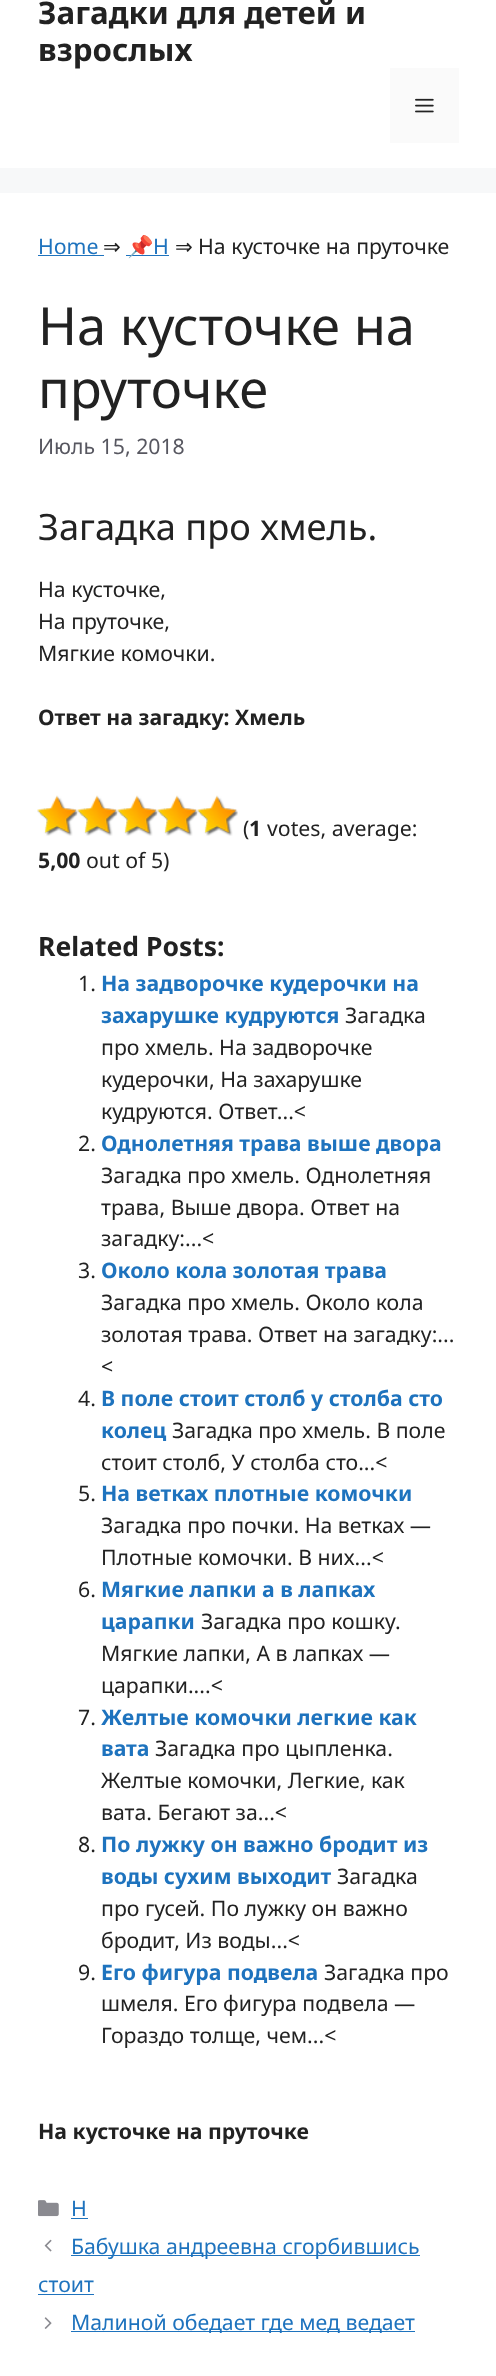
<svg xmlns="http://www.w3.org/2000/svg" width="496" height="2376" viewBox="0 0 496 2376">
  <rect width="100%" height="100%" fill="#f7f8f9"/>
  <rect x="0" y="0" width="496" height="168" fill="#ffffff"/>
  <text x="38" y="24" font-family="Noto Sans" font-size="31.25" font-weight="bold" fill="#222222">Загадки для детей и</text>
  <text x="38" y="61" font-family="Noto Sans" font-size="31.25" font-weight="bold" fill="#222222">взрослых</text>
  <rect x="390" y="68" width="69" height="75" fill="#fafafa"/>
  <image x="415" y="98" width="19" height="15" href="img1.png"/>
  <rect x="0" y="193" width="496" height="2183" fill="#ffffff"/>
  <text x="38" y="254" font-family="Noto Sans" font-size="21.25" fill="#1e73be">Home</text>
  <text x="103" y="254" font-family="DejaVu Sans" font-size="21.25" fill="#222222">⇒</text>
  <rect x="38" y="255" width="66" height="1" fill="#1e73be"/>
  <rect x="126" y="255" width="43" height="1" fill="#1e73be"/>
  <text x="127" y="254" font-family="Noto Color Emoji" font-size="21.25" fill="#1e73be">📌</text>
  <text x="153" y="254" font-family="Noto Sans" font-size="21.25" fill="#1e73be">Н</text>
  <text x="175" y="254" font-family="DejaVu Sans" font-size="21.25" fill="#222222">⇒</text>
  <text x="198" y="254" font-family="Noto Sans" font-size="21.25" fill="#222222">На кусточке на пруточке</text>
  <text x="38" y="345" font-family="Noto Sans" font-size="52.5" fill="#222222">На кусточке на</text>
  <text x="38" y="408" font-family="Noto Sans" font-size="52.5" fill="#222222">пруточке</text>
  <text x="38" y="454" font-family="Noto Sans" font-size="21.25" fill="#575760">Июль 15, 2018</text>
  <text x="38" y="540" font-family="Noto Sans" font-size="36.25" fill="#222222">Загадка про хмель.</text>
  <text x="38" y="597" font-family="Noto Sans" font-size="21.25" fill="#222222">На кусточке,</text>
  <text x="38" y="629" font-family="Noto Sans" font-size="21.25" fill="#222222">На пруточке,</text>
  <text x="38" y="661" font-family="Noto Sans" font-size="21.25" fill="#222222">Мягкие комочки.</text>
  <text x="38" y="725" font-family="Noto Sans" font-size="21.25" font-weight="bold" fill="#222222">Ответ на загадку: Хмель</text>
  <image x="37" y="795" width="41" height="41" href="img2.png"/>
  <image x="77" y="795" width="41" height="41" href="img3.png"/>
  <image x="117" y="795" width="41" height="41" href="img4.png"/>
  <image x="157" y="795" width="41" height="41" href="img4.png"/>
  <image x="197" y="795" width="41" height="41" href="img4.png"/>
  <text x="243" y="836" font-family="Noto Sans" font-size="21.25" fill="#222222">(</text>
  <text x="249" y="836" font-family="Noto Sans" font-size="21.25" font-weight="bold" fill="#222222">1</text>
  <text x="267" y="836" font-family="Noto Sans" font-size="21.25" fill="#222222">votes, average:</text>
  <text x="38" y="868" font-family="Noto Sans" font-size="21.25" font-weight="bold" fill="#222222">5,00</text>
  <text x="86" y="868" font-family="Noto Sans" font-size="21.25" fill="#222222">out of 5)</text>
  <text x="38" y="956" font-family="Noto Sans" font-size="26.5" font-weight="bold" fill="#222222">Related Posts:</text>
  <text x="78" y="991" font-family="Noto Sans" font-size="21.25" fill="#222222">1.</text>
  <text x="101" y="991" font-family="Noto Sans" font-size="21.25" font-weight="bold" fill="#1e73be">На задворочке кудерочки на</text>
  <text x="101" y="1023" font-family="Noto Sans" font-size="21.25" font-weight="bold" fill="#1e73be">захарушке кудруются</text>
  <text x="345" y="1023" font-family="Noto Sans" font-size="21.25" fill="#222222">Загадка</text>
  <text x="101" y="1055" font-family="Noto Sans" font-size="21.25" fill="#222222">про хмель. На задворочке</text>
  <text x="101" y="1087" font-family="Noto Sans" font-size="21.25" fill="#222222">кудерочки, На захарушке</text>
  <text x="101" y="1119" font-family="Noto Sans" font-size="21.25" fill="#222222">кудруются. Ответ...&lt;</text>
  <text x="78" y="1151" font-family="Noto Sans" font-size="21.25" fill="#222222">2.</text>
  <text x="101" y="1151" font-family="Noto Sans" font-size="21.25" font-weight="bold" fill="#1e73be">Однолетняя трава выше двора</text>
  <text x="101" y="1183" font-family="Noto Sans" font-size="21.25" fill="#222222">Загадка про хмель. Однолетняя</text>
  <text x="101" y="1215" font-family="Noto Sans" font-size="21.25" fill="#222222">трава, Выше двора. Ответ на</text>
  <text x="101" y="1246" font-family="Noto Sans" font-size="21.25" fill="#222222">загадку:...&lt;</text>
  <text x="78" y="1278" font-family="Noto Sans" font-size="21.25" fill="#222222">3.</text>
  <text x="101" y="1278" font-family="Noto Sans" font-size="21.25" font-weight="bold" fill="#1e73be">Около кола золотая трава</text>
  <text x="101" y="1310" font-family="Noto Sans" font-size="21.25" fill="#222222">Загадка про хмель. Около кола</text>
  <text x="101" y="1342" font-family="Noto Sans" font-size="21.25" fill="#222222">золотая трава. Ответ на загадку:...</text>
  <text x="101" y="1374" font-family="Noto Sans" font-size="21.25" fill="#222222">&lt;</text>
  <text x="78" y="1406" font-family="Noto Sans" font-size="21.25" fill="#222222">4.</text>
  <text x="101" y="1406" font-family="Noto Sans" font-size="21.25" font-weight="bold" fill="#1e73be">В поле стоит столб у столба сто</text>
  <text x="101" y="1438" font-family="Noto Sans" font-size="21.25" font-weight="bold" fill="#1e73be">колец</text>
  <text x="172" y="1438" font-family="Noto Sans" font-size="21.25" fill="#222222">Загадка про хмель. В поле</text>
  <text x="101" y="1470" font-family="Noto Sans" font-size="21.25" fill="#222222">стоит столб, У столба сто...&lt;</text>
  <text x="78" y="1501" font-family="Noto Sans" font-size="21.25" fill="#222222">5.</text>
  <text x="101" y="1501" font-family="Noto Sans" font-size="21.25" font-weight="bold" fill="#1e73be">На ветках плотные комочки</text>
  <text x="101" y="1533" font-family="Noto Sans" font-size="21.25" fill="#222222">Загадка про почки. На ветках —</text>
  <text x="101" y="1565" font-family="Noto Sans" font-size="21.25" fill="#222222">Плотные комочки. В них...&lt;</text>
  <text x="78" y="1597" font-family="Noto Sans" font-size="21.25" fill="#222222">6.</text>
  <text x="101" y="1597" font-family="Noto Sans" font-size="21.25" font-weight="bold" fill="#1e73be">Мягкие лапки а в лапках</text>
  <text x="101" y="1629" font-family="Noto Sans" font-size="21.25" font-weight="bold" fill="#1e73be">царапки</text>
  <text x="201" y="1629" font-family="Noto Sans" font-size="21.25" fill="#222222">Загадка про кошку.</text>
  <text x="101" y="1661" font-family="Noto Sans" font-size="21.25" fill="#222222">Мягкие лапки, А в лапках —</text>
  <text x="101" y="1693" font-family="Noto Sans" font-size="21.25" fill="#222222">царапки....&lt;</text>
  <text x="78" y="1725" font-family="Noto Sans" font-size="21.25" fill="#222222">7.</text>
  <text x="101" y="1725" font-family="Noto Sans" font-size="21.25" font-weight="bold" fill="#1e73be">Желтые комочки легкие как</text>
  <text x="101" y="1756" font-family="Noto Sans" font-size="21.25" font-weight="bold" fill="#1e73be">вата</text>
  <text x="155" y="1756" font-family="Noto Sans" font-size="21.25" fill="#222222">Загадка про цыпленка.</text>
  <text x="101" y="1788" font-family="Noto Sans" font-size="21.25" fill="#222222">Желтые комочки, Легкие, как</text>
  <text x="101" y="1820" font-family="Noto Sans" font-size="21.25" fill="#222222">вата. Бегают за...&lt;</text>
  <text x="78" y="1852" font-family="Noto Sans" font-size="21.25" fill="#222222">8.</text>
  <text x="101" y="1852" font-family="Noto Sans" font-size="21.25" font-weight="bold" fill="#1e73be">По лужку он важно бродит из</text>
  <text x="101" y="1884" font-family="Noto Sans" font-size="21.25" font-weight="bold" fill="#1e73be">воды сухим выходит</text>
  <text x="337" y="1884" font-family="Noto Sans" font-size="21.25" fill="#222222">Загадка</text>
  <text x="101" y="1916" font-family="Noto Sans" font-size="21.25" fill="#222222">про гусей. По лужку он важно</text>
  <text x="101" y="1948" font-family="Noto Sans" font-size="21.25" fill="#222222">бродит, Из воды...&lt;</text>
  <text x="78" y="1980" font-family="Noto Sans" font-size="21.25" fill="#222222">9.</text>
  <text x="101" y="1980" font-family="Noto Sans" font-size="21.25" font-weight="bold" fill="#1e73be">Его фигура подвела</text>
  <text x="324" y="1980" font-family="Noto Sans" font-size="21.25" fill="#222222">Загадка про</text>
  <text x="101" y="2011" font-family="Noto Sans" font-size="21.25" fill="#222222">шмеля. Его фигура подвела —</text>
  <text x="101" y="2043" font-family="Noto Sans" font-size="21.25" fill="#222222">Гораздо толще, чем...&lt;</text>
  <text x="38" y="2139" font-family="Noto Sans" font-size="21.25" font-weight="bold" fill="#222222">На кусточке на пруточке</text>
  <image x="38" y="2200" width="21" height="17" href="img5.png"/>
  <text x="71" y="2216" font-family="Noto Sans" font-size="21.25" fill="#1e73be">Н</text>
  <rect x="71" y="2218" width="17" height="1" fill="#1e73be"/>
  <image x="44" y="2239" width="8" height="13" href="img6.png"/>
  <rect x="71" y="2255" width="349" height="1" fill="#1e73be"/>
  <text x="71" y="2254" font-family="Noto Sans" font-size="21.25" fill="#1e73be">Бабушка андреевна сгорбившись</text>
  <text x="38" y="2292" font-family="Noto Sans" font-size="21.25" fill="#1e73be">стоит</text>
  <rect x="38" y="2294" width="56" height="1" fill="#1e73be"/>
  <image x="44" y="2317" width="8" height="12" href="img7.png"/>
  <rect x="71" y="2331" width="344" height="1" fill="#1e73be"/>
  <text x="71" y="2330" font-family="Noto Sans" font-size="21.25" fill="#1e73be">Малиной обедает где мед ведает</text>
</svg>
